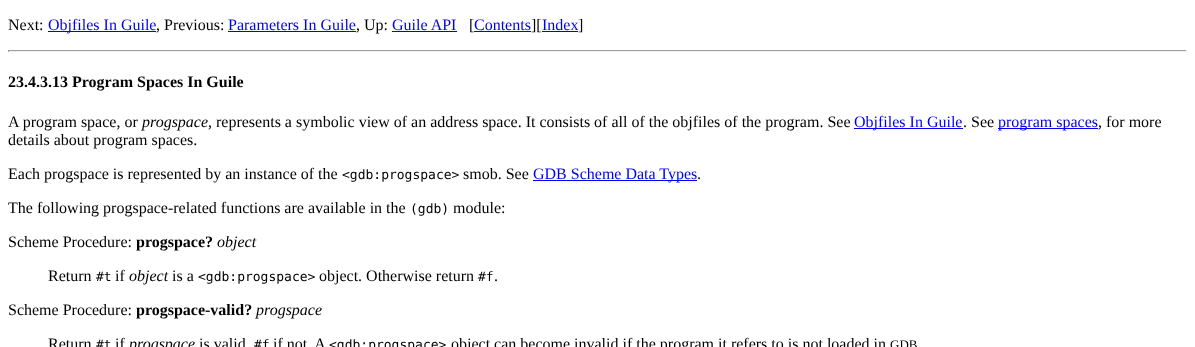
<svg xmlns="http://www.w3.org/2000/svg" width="1195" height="347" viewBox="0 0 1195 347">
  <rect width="100%" height="100%" fill="#ffffff"/>
  <text x="8" y="30" font-family="Liberation Serif" font-size="16" fill="#000000">Next:</text>
  <rect x="48" y="31" width="108" height="1" fill="#0000ee"/>
  <text x="48" y="30" font-family="Liberation Serif" font-size="16" fill="#0000ee">Objfiles In Guile</text>
  <text x="156" y="30" font-family="Liberation Serif" font-size="16" fill="#000000">, Previous:</text>
  <text x="228" y="30" font-family="Liberation Serif" font-size="16" fill="#0000ee">Parameters In Guile</text>
  <rect x="228" y="31" width="128" height="1" fill="#0000ee"/>
  <text x="356" y="30" font-family="Liberation Serif" font-size="16" fill="#000000">, Up:</text>
  <text x="392" y="30" font-family="Liberation Serif" font-size="16" fill="#0000ee">Guile API</text>
  <rect x="392" y="31" width="65" height="1" fill="#0000ee"/>
  <text x="469" y="30" font-family="Liberation Serif" font-size="16" fill="#000000">[</text>
  <text x="474" y="30" font-family="Liberation Serif" font-size="16" fill="#0000ee">Contents</text>
  <rect x="474" y="31" width="57" height="1" fill="#0000ee"/>
  <text x="531" y="30" font-family="Liberation Serif" font-size="16" fill="#000000">][</text>
  <text x="542" y="30" font-family="Liberation Serif" font-size="16" fill="#0000ee">Index</text>
  <rect x="542" y="31" width="36" height="1" fill="#0000ee"/>
  <text x="578" y="30" font-family="Liberation Serif" font-size="16" fill="#000000">]</text>
  <rect x="8" y="50" width="1179" height="1" fill="#9f9f9f"/>
  <rect x="1186" y="50" width="1" height="2" fill="#eeeeee"/>
  <rect x="8" y="51" width="1179" height="1" fill="#eeeeee"/>
  <rect x="8" y="50" width="1" height="2" fill="#9f9f9f"/>
  <text x="8" y="87" font-family="Liberation Serif" font-size="16" font-weight="bold" fill="#000000">23.4.3.13 Program Spaces In Guile</text>
  <text x="8" y="127" font-family="Liberation Serif" font-size="16" fill="#000000">A program space, or</text>
  <text x="142" y="127" font-family="Liberation Serif" font-size="16" font-style="italic" fill="#000000">progspace</text>
  <text x="208" y="127" font-family="Liberation Serif" font-size="16" fill="#000000">, represents a symbolic view of an address space. It consists of all of the objfiles of the program. See</text>
  <rect x="854" y="128" width="109" height="1" fill="#0000ee"/>
  <text x="854" y="127" font-family="Liberation Serif" font-size="16" fill="#0000ee">Objfiles In Guile</text>
  <text x="963" y="127" font-family="Liberation Serif" font-size="16" fill="#000000">. See</text>
  <rect x="998" y="128" width="100" height="1" fill="#0000ee"/>
  <text x="998" y="127" font-family="Liberation Serif" font-size="16" fill="#0000ee">program spaces</text>
  <text x="1098" y="127" font-family="Liberation Serif" font-size="16" fill="#000000">, for more</text>
  <text x="8" y="145" font-family="Liberation Serif" font-size="16" fill="#000000">details about program spaces.</text>
  <text x="8" y="179" font-family="Liberation Serif" font-size="16" fill="#000000">Each progspace is represented by an instance of the</text>
  <text x="342" y="179" font-family="DejaVu Sans Mono" font-size="13" fill="#000000">&lt;gdb:progspace&gt;</text>
  <text x="463" y="179" font-family="Liberation Serif" font-size="16" fill="#000000">smob. See</text>
  <rect x="533" y="180" width="164" height="1" fill="#0000ee"/>
  <text x="533" y="179" font-family="Liberation Serif" font-size="16" fill="#0000ee">GDB Scheme Data Types</text>
  <text x="697" y="179" font-family="Liberation Serif" font-size="16" fill="#000000">.</text>
  <text x="8" y="213" font-family="Liberation Serif" font-size="16" fill="#000000">The following progspace-related functions are available in the</text>
  <text x="410" y="213" font-family="DejaVu Sans Mono" font-size="13" fill="#000000">(gdb)</text>
  <text x="453" y="213" font-family="Liberation Serif" font-size="16" fill="#000000">module:</text>
  <text x="8" y="247" font-family="Liberation Serif" font-size="16" fill="#000000">Scheme Procedure:</text>
  <text x="136" y="247" font-family="Liberation Serif" font-size="16" font-weight="bold" fill="#000000">progspace?</text>
  <text x="217" y="247" font-family="Liberation Serif" font-size="16" font-style="italic" fill="#000000">object</text>
  <text x="48" y="281" font-family="Liberation Serif" font-size="16" fill="#000000">Return</text>
  <text x="96" y="281" font-family="DejaVu Sans Mono" font-size="13" fill="#000000">#t</text>
  <text x="115" y="281" font-family="Liberation Serif" font-size="16" fill="#000000">if</text>
  <text x="129" y="281" font-family="Liberation Serif" font-size="16" font-style="italic" fill="#000000">object</text>
  <text x="172" y="281" font-family="Liberation Serif" font-size="16" fill="#000000">is a</text>
  <text x="198" y="281" font-family="DejaVu Sans Mono" font-size="13" fill="#000000">&lt;gdb:progspace&gt;</text>
  <text x="319" y="281" font-family="Liberation Serif" font-size="16" fill="#000000">object. Otherwise return</text>
  <text x="478" y="281" font-family="DejaVu Sans Mono" font-size="13" fill="#000000">#f</text>
  <text x="494" y="281" font-family="Liberation Serif" font-size="16" fill="#000000">.</text>
  <text x="8" y="315" font-family="Liberation Serif" font-size="16" fill="#000000">Scheme Procedure:</text>
  <text x="136" y="315" font-family="Liberation Serif" font-size="16" font-weight="bold" fill="#000000">progspace-valid?</text>
  <text x="256" y="315" font-family="Liberation Serif" font-size="16" font-style="italic" fill="#000000">progspace</text>
  <text x="48" y="349" font-family="Liberation Serif" font-size="16" fill="#000000">Return</text>
  <text x="96" y="349" font-family="DejaVu Sans Mono" font-size="13" fill="#000000">#t</text>
  <text x="115" y="349" font-family="Liberation Serif" font-size="16" fill="#000000">if</text>
  <text x="129" y="349" font-family="Liberation Serif" font-size="16" font-style="italic" fill="#000000">progspace</text>
  <text x="199" y="349" font-family="Liberation Serif" font-size="16" fill="#000000">is valid</text>
  <text x="254" y="349" font-family="DejaVu Sans Mono" font-size="13" fill="#000000">#f</text>
  <text x="273" y="349" font-family="Liberation Serif" font-size="16" fill="#000000">if not. A</text>
  <text x="329" y="349" font-family="DejaVu Sans Mono" font-size="13" fill="#000000">&lt;gdb:progspace&gt;</text>
  <text x="451" y="349" font-family="Liberation Serif" font-size="16" fill="#000000">object can become invalid if the program it refers to is not loaded in</text>
  <text x="890" y="349" font-family="Liberation Serif" font-size="13" fill="#000000">GDB</text>
</svg>
